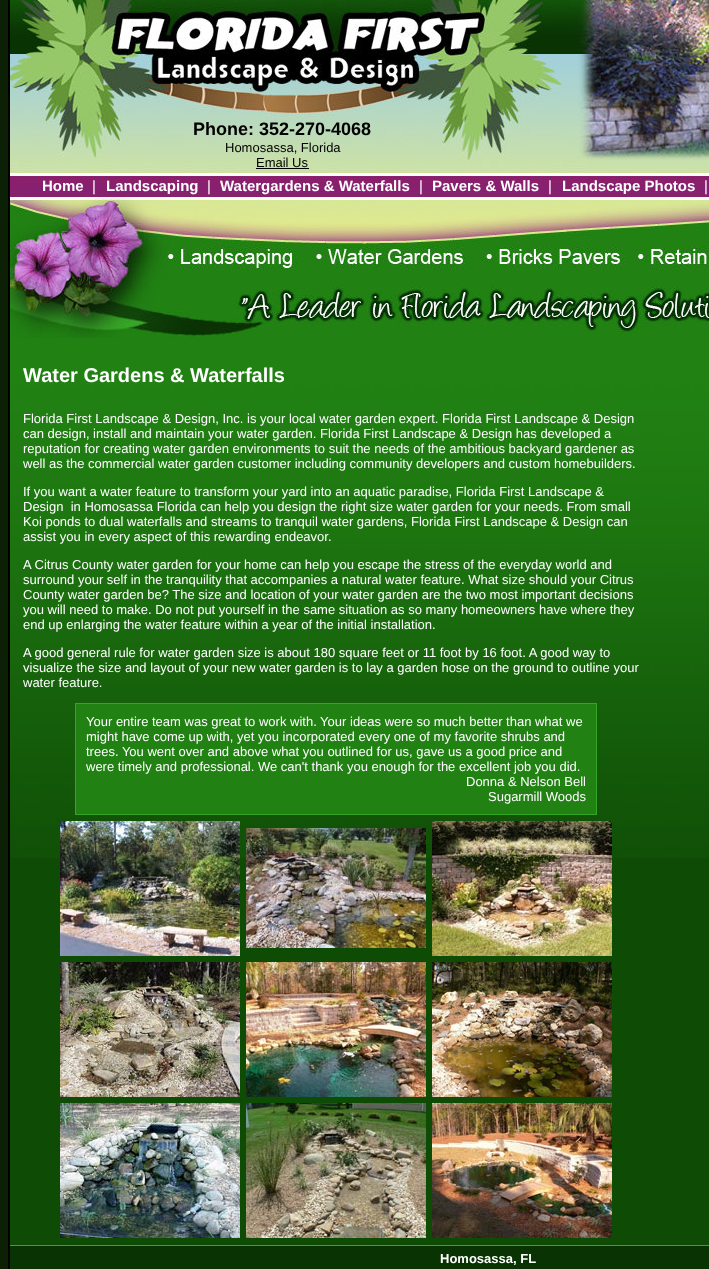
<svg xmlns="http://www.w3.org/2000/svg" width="709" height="1269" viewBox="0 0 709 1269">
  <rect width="100%" height="100%" fill="#0b2005"/>
  <rect x="9" y="-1" width="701" height="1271" fill="none" stroke="#000000" stroke-width="2"/>
  <image x="10" y="0" width="699" height="338" href="img1.png"/>
  <text x="193" y="135" font-family="Liberation Sans" font-size="18" font-weight="bold" fill="#000000">Phone: 352-270-4068</text>
  <text x="225" y="152" font-family="Liberation Sans" font-size="13" fill="#000000">Homosassa, Florida</text>
  <text x="256" y="167" font-family="Liberation Sans" font-size="13" fill="#000000">Email Us</text>
  <rect x="256" y="168" width="53" height="1" fill="#000000"/>
  <text x="42" y="191" font-family="Liberation Sans" font-size="15" font-weight="bold" fill="#ffffff">Home</text>
  <text x="92" y="191" font-family="Liberation Sans" font-size="15" fill="#ffffff">|</text>
  <text x="106" y="191" font-family="Liberation Sans" font-size="15" font-weight="bold" fill="#ffffff">Landscaping</text>
  <text x="207" y="191" font-family="Liberation Sans" font-size="15" fill="#ffffff">|</text>
  <text x="220" y="191" font-family="Liberation Sans" font-size="15" font-weight="bold" fill="#ffffff">Watergardens &amp; Waterfalls</text>
  <text x="419" y="191" font-family="Liberation Sans" font-size="15" fill="#ffffff">|</text>
  <text x="432" y="191" font-family="Liberation Sans" font-size="15" font-weight="bold" fill="#ffffff">Pavers &amp; Walls</text>
  <text x="548" y="191" font-family="Liberation Sans" font-size="15" fill="#ffffff">|</text>
  <text x="562" y="191" font-family="Liberation Sans" font-size="15" font-weight="bold" fill="#ffffff">Landscape Photos</text>
  <text x="704" y="191" font-family="Liberation Sans" font-size="15" fill="#ffffff">|</text>
  <rect x="10" y="858" width="699" height="387" fill="#0e4c06"/>
  <image x="10" y="338" width="699" height="520" href="img2.png"/>
  <text x="23" y="382" font-family="Liberation Sans" font-size="20" font-weight="bold" fill="#ffffff">Water Gardens &amp; Waterfalls</text>
  <text x="23" y="423" font-family="Liberation Sans" font-size="13" fill="#ffffff">Florida First Landscape &amp; Design, Inc. is your local water garden expert. Florida First Landscape &amp; Design</text>
  <text x="23" y="438" font-family="Liberation Sans" font-size="13" fill="#ffffff">can design, install and maintain your water garden. Florida First Landscape &amp; Design has developed a</text>
  <text x="23" y="453" font-family="Liberation Sans" font-size="13" fill="#ffffff">reputation for creating water garden environments to suit the needs of the ambitious backyard gardener as</text>
  <text x="23" y="468" font-family="Liberation Sans" font-size="13" fill="#ffffff">well as the commercial water garden customer including community developers and custom homebuilders.</text>
  <text x="23" y="496" font-family="Liberation Sans" font-size="13" fill="#ffffff">If you want a water feature to transform your yard into an aquatic paradise, Florida First Landscape &amp;</text>
  <text x="23" y="511" font-family="Liberation Sans" font-size="13" fill="#ffffff" xml:space="preserve">Design  in Homosassa Florida can help you design the right size water garden for your needs. From small</text>
  <text x="23" y="526" font-family="Liberation Sans" font-size="13" fill="#ffffff">Koi ponds to dual waterfalls and streams to tranquil water gardens, Florida First Landscape &amp; Design can</text>
  <text x="23" y="541" font-family="Liberation Sans" font-size="13" fill="#ffffff">assist you in every aspect of this rewarding endeavor.</text>
  <text x="23" y="569" font-family="Liberation Sans" font-size="13" fill="#ffffff">A Citrus County water garden for your home can help you escape the stress of the everyday world and</text>
  <text x="23" y="584" font-family="Liberation Sans" font-size="13" fill="#ffffff">surround your self in the tranquility that accompanies a natural water feature. What size should your Citrus</text>
  <text x="23" y="599" font-family="Liberation Sans" font-size="13" fill="#ffffff">County water garden be? The size and location of your water garden are the two most important decisions</text>
  <text x="23" y="614" font-family="Liberation Sans" font-size="13" fill="#ffffff">you will need to make. Do not put yourself in the same situation as so many homeowners have where they</text>
  <text x="23" y="629" font-family="Liberation Sans" font-size="13" fill="#ffffff">end up enlarging the water feature within a year of the initial installation.</text>
  <text x="23" y="657" font-family="Liberation Sans" font-size="13" fill="#ffffff">A good general rule for water garden size is about 180 square feet or 11 foot by 16 foot. A good way to</text>
  <text x="23" y="672" font-family="Liberation Sans" font-size="13" fill="#ffffff">visualize the size and layout of your new water garden is to lay a garden hose on the ground to outline your</text>
  <text x="23" y="687" font-family="Liberation Sans" font-size="13" fill="#ffffff">water feature.</text>
  <rect x="75.5" y="703.5" width="521" height="111" fill="#218113" stroke="#36a525"/>
  <text x="86" y="726" font-family="Liberation Sans" font-size="13" fill="#ffffff">Your entire team was great to work with. Your ideas were so much better than what we</text>
  <text x="86" y="741" font-family="Liberation Sans" font-size="13" fill="#ffffff">might have come up with, yet you incorporated every one of my favorite shrubs and</text>
  <text x="86" y="756" font-family="Liberation Sans" font-size="13" fill="#ffffff">trees. You went over and above what you outlined for us, gave us a good price and</text>
  <text x="86" y="771" font-family="Liberation Sans" font-size="13" fill="#ffffff">were timely and professional. We can't thank you enough for the excellent job you did.</text>
  <text x="466" y="786" font-family="Liberation Sans" font-size="13" fill="#ffffff">Donna &amp; Nelson Bell</text>
  <text x="488" y="801" font-family="Liberation Sans" font-size="13" fill="#ffffff">Sugarmill Woods</text>
  <image x="60" y="821" width="180" height="135" href="img3.png"/>
  <image x="246" y="828" width="180" height="120" href="img4.png"/>
  <image x="432" y="821" width="180" height="135" href="img5.png"/>
  <image x="60" y="962" width="180" height="135" href="img6.png"/>
  <image x="246" y="962" width="180" height="135" href="img7.png"/>
  <image x="432" y="962" width="180" height="135" href="img8.png"/>
  <image x="60" y="1103" width="180" height="135" href="img9.png"/>
  <image x="246" y="1103" width="180" height="135" href="img10.png"/>
  <image x="432" y="1103" width="180" height="135" href="img11.png"/>
  <rect x="10" y="1246" width="699" height="23" fill="#093303"/>
  <rect x="10" y="1245" width="699" height="1" fill="#37a626"/>
  <text x="440" y="1263" font-family="Liberation Sans" font-size="13" font-weight="bold" fill="#ffffff">Homosassa, FL</text>
</svg>
